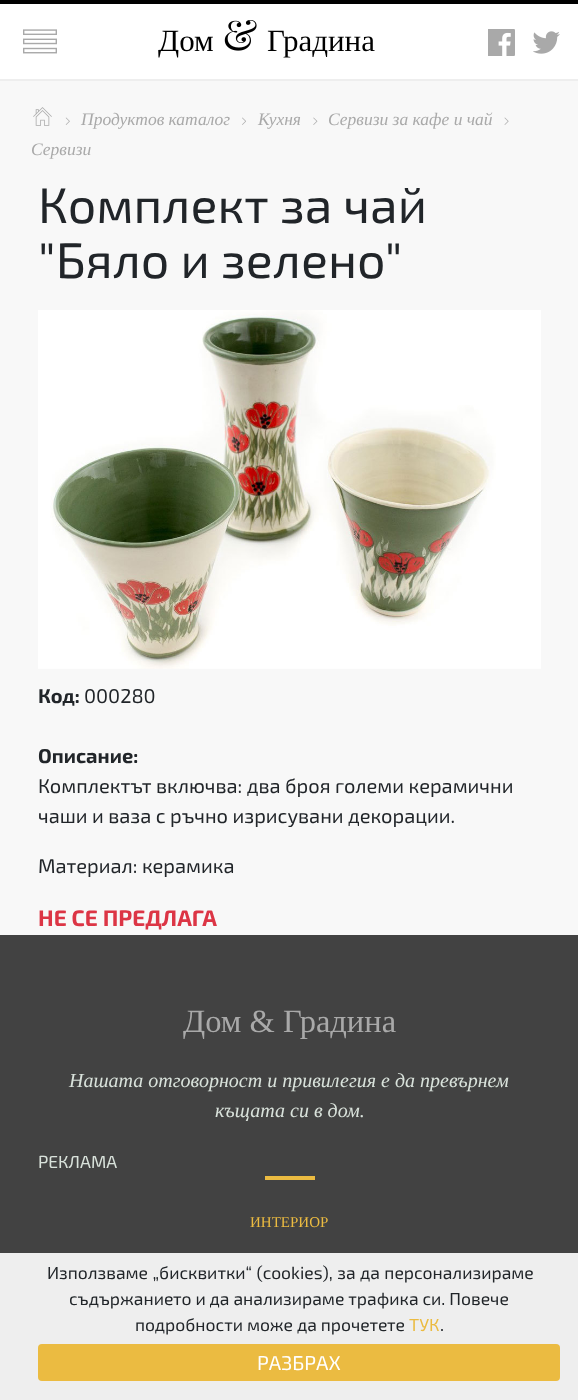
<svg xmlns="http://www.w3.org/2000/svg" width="578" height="1400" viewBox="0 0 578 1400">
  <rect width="100%" height="100%" fill="#ffffff"/>
  <rect x="0" y="0" width="578" height="4" fill="#000000"/>
  <rect x="0" y="79" width="578" height="2" fill="#eeeeee"/>
  <image x="23" y="29" width="34" height="25" href="img1.png"/>
  <text x="158" y="51" font-family="Liberation Serif" font-size="31" fill="#000000">Дом</text>
  <image x="224" y="20" width="33" height="31" href="img2.png"/>
  <text x="267" y="51" font-family="Liberation Serif" font-size="31" fill="#000000">Градина</text>
  <image x="488" y="29" width="27" height="27" href="img3.png"/>
  <image x="533" y="31" width="27" height="23" href="img4.png"/>
  <rect x="0" y="81" width="578" height="854" fill="#f8f8f8"/>
  <image x="33" y="107" width="19" height="19" href="img5.png"/>
  <image x="65" y="117" width="5" height="8" href="img6.png"/>
  <text x="81" y="125" font-family="Liberation Serif" font-size="17.5" font-style="italic" fill="#a9a9a9">Продуктов каталог</text>
  <image x="242" y="117" width="4" height="8" href="img7.png"/>
  <text x="258" y="125" font-family="Liberation Serif" font-size="17.5" font-style="italic" fill="#a9a9a9">Кухня</text>
  <image x="313" y="117" width="5" height="8" href="img8.png"/>
  <text x="328" y="125" font-family="Liberation Serif" font-size="17.5" font-style="italic" fill="#a9a9a9">Сервизи за кафе и чай</text>
  <image x="504" y="117" width="5" height="8" href="img9.png"/>
  <text x="31" y="155" font-family="Liberation Serif" font-size="17.5" font-style="italic" fill="#a9a9a9">Сервизи</text>
  <text x="38" y="223" font-family="'Exo 2'" font-size="50" fill="#212529">Комплект за чай</text>
  <text x="38" y="278" font-family="'Exo 2'" font-size="50" fill="#212529">"Бяло и зелено"</text>
  <image x="38" y="310" width="503" height="359" href="img10.png"/>
  <text x="38" y="703" font-family="'Exo 2'" font-size="20" font-weight="bold" fill="#212529">Код:</text>
  <text x="84" y="703" font-family="'Exo 2'" font-size="20" fill="#212529">000280</text>
  <text x="38" y="763" font-family="'Exo 2'" font-size="20" font-weight="bold" fill="#212529">Описание:</text>
  <text x="38" y="793" font-family="'Exo 2'" font-size="20" fill="#212529">Комплектът включва: два броя големи керамични</text>
  <text x="38" y="823" font-family="'Exo 2'" font-size="20" fill="#212529">чаши и ваза с ръчно изрисувани декорации.</text>
  <text x="38" y="873" font-family="'Exo 2'" font-size="20" fill="#212529">Материал: керамика</text>
  <text x="38" y="926" font-family="'Exo 2'" font-size="22.5" font-weight="bold" fill="#dc3545">НЕ СЕ ПРЕДЛАГА</text>
  <rect x="0" y="935" width="578" height="318" fill="#424242"/>
  <text x="183" y="1032" font-family="Liberation Serif" font-size="32.5" fill="#a9a9a9">Дом &amp; Градина</text>
  <text x="69" y="1087" font-family="Liberation Serif" font-size="20" font-style="italic" fill="#d9e2db">Нашата отговорност и привилегия е да превърнем</text>
  <text x="215" y="1117" font-family="Liberation Serif" font-size="20" font-style="italic" fill="#d9e2db">къщата си в дом.</text>
  <text x="38" y="1168" font-family="'Exo 2'" font-size="17.5" fill="#d9e2db">РЕКЛАМА</text>
  <rect x="265" y="1176" width="50" height="4" fill="#ebbb41"/>
  <text x="250" y="1227" font-family="Liberation Serif" font-size="15" fill="#ebbb41">ИНТЕРИОР</text>
  <rect x="0" y="1253" width="578" height="147" fill="#eeeeee"/>
  <text x="47" y="1279" word-spacing="0.5" font-family="'Exo 2'" font-size="17.5" fill="#212529">Използваме „бисквитки“ (cookies), за да персонализираме</text>
  <text x="69" y="1305" font-family="'Exo 2'" font-size="17.5" fill="#212529">съдържанието и да анализираме трафика си. Повече</text>
  <text x="135" y="1331" font-family="'Exo 2'" font-size="17.5" fill="#212529">подробности може да прочетете</text>
  <text x="409" y="1331" font-family="'Exo 2'" font-size="17.5" fill="#ebbb41">ТУК</text>
  <text x="440" y="1331" font-family="'Exo 2'" font-size="17.5" fill="#212529">.</text>
  <rect x="38" y="1344" width="522" height="37" rx="4" fill="#ebbb41"/>
  <text x="257" y="1370" font-family="'Exo 2'" font-size="20" fill="#ffffff">РАЗБРАХ</text>
</svg>
